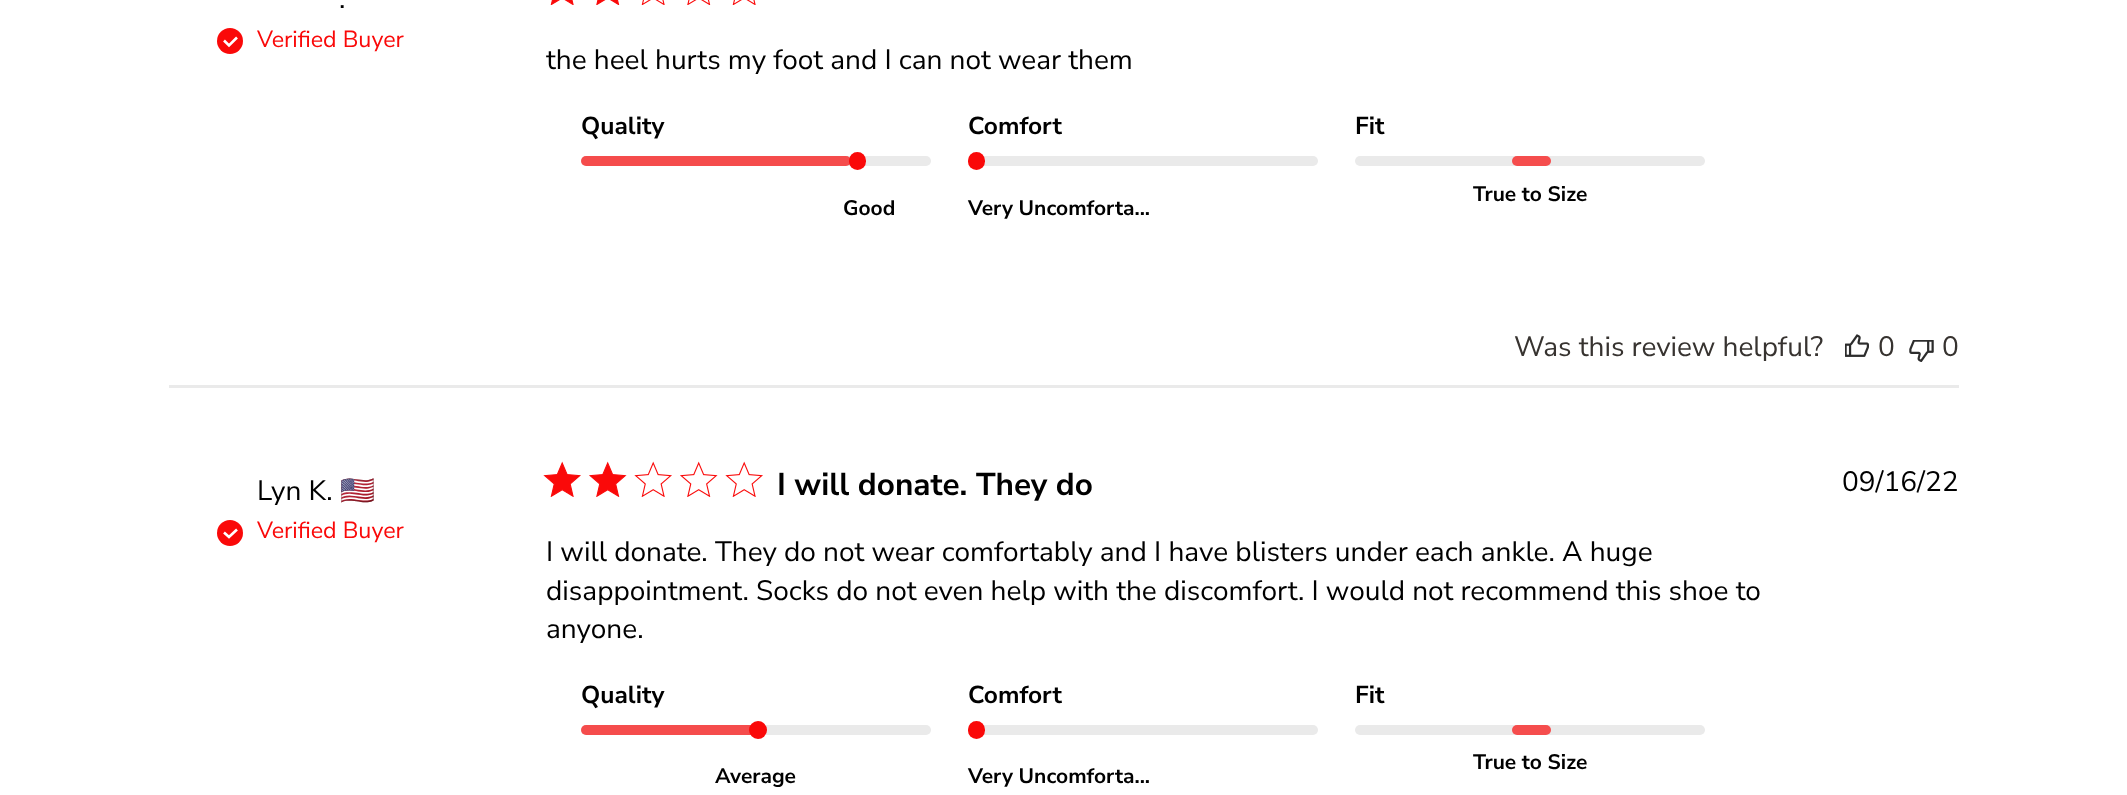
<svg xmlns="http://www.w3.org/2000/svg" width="2127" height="795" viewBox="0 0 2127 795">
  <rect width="100%" height="100%" fill="#ffffff"/>
  <circle cx="230" cy="41" r="13" fill="#fa0909"/>
  <path d="M224 40.5L229 45.5L237 37.5" fill="none" stroke="#ffffff" stroke-width="2.6"/>
  <text x="339" y="8" font-family="Nunito Sans" font-size="28" font-weight="200" fill="#000000">.</text>
  <text x="257" y="47" font-family="Nunito Sans" font-size="23.25" font-weight="200" fill="#fa0909">Verified Buyer</text>
  <image x="550" y="0" width="24" height="5" href="img1.png"/>
  <image x="596" y="0" width="24" height="5" href="img2.png"/>
  <image x="641" y="0" width="24" height="5" href="img3.png"/>
  <image x="687" y="0" width="24" height="5" href="img4.png"/>
  <image x="732" y="0" width="24" height="5" href="img3.png"/>
  <text x="546" y="69" font-family="Nunito Sans" font-size="28" font-weight="200" fill="#000000">the heel hurts my foot and I can not wear them</text>
  <text x="581" y="134" font-family="'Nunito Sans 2'" font-size="24.5" font-weight="200" fill="#000000">Quality</text>
  <rect x="581" y="156" width="350" height="10" rx="5" fill="#eaeaea"/>
  <rect x="581" y="156" width="270" height="10" rx="5" fill="#fa0909" fill-opacity="0.7"/>
  <rect x="849" y="152" width="17" height="18" rx="8.5" fill="#fa0909"/>
  <text x="843" y="215" font-family="'Nunito Sans 2'" font-size="21" font-weight="200" fill="#000000">Good</text>
  <text x="968" y="134" font-family="'Nunito Sans 2'" font-size="24.5" font-weight="200" fill="#000000">Comfort</text>
  <rect x="968" y="156" width="350" height="10" rx="5" fill="#eaeaea"/>
  <rect x="968" y="152" width="17" height="18" rx="8.5" fill="#fa0909"/>
  <text x="968" y="215" font-family="'Nunito Sans 2'" font-size="21" font-weight="200" fill="#000000">Very Uncomforta...</text>
  <text x="1355" y="134" font-family="'Nunito Sans 2'" font-size="24.5" font-weight="200" fill="#000000">Fit</text>
  <rect x="1355" y="156" width="350" height="10" rx="5" fill="#eaeaea"/>
  <rect x="1512" y="156" width="39" height="10" rx="5" fill="#f54d4d"/>
  <text x="1473" y="201" font-family="'Nunito Sans 2'" font-size="21" font-weight="200" fill="#000000">True to Size</text>
  <text x="1514" y="356" font-family="Nunito Sans" font-size="28" font-weight="200" fill="#373330">Was this review helpful?</text>
  <image x="1845" y="334" width="24" height="23" href="img5.png"/>
  <text x="1878" y="356" font-family="Nunito Sans" font-size="28" font-weight="200" fill="#373330">0</text>
  <image x="1909" y="340" width="25" height="22" href="img6.png"/>
  <text x="1942" y="356" font-family="Nunito Sans" font-size="28" font-weight="200" fill="#373330">0</text>
  <rect x="169" y="385" width="1790" height="3" fill="#eaeaea"/>
  <circle cx="230" cy="533" r="13" fill="#fa0909"/>
  <path d="M224 532.5L229 537L237 529.5" fill="none" stroke="#ffffff" stroke-width="2.6"/>
  <text x="257" y="500" font-family="Nunito Sans" font-size="28" font-weight="200" fill="#000000">Lyn K.</text>
  <text x="340" y="500" font-family="Noto Color Emoji" font-size="28" fill="#000000">🇺🇸</text>
  <text x="257" y="538" font-family="Nunito Sans" font-size="23.25" font-weight="200" fill="#fa0909">Verified Buyer</text>
  <image x="543" y="461" width="38" height="36" href="img7.png"/>
  <image x="589" y="461" width="38" height="36" href="img8.png"/>
  <image x="634" y="461" width="38" height="36" href="img9.png"/>
  <image x="680" y="461" width="38" height="36" href="img10.png"/>
  <image x="725" y="461" width="38" height="36" href="img9.png"/>
  <text x="777" y="495" font-family="'Nunito Sans 2'" font-size="31.5" font-weight="200" fill="#000000">I will donate. They do</text>
  <text x="546" y="561" font-family="Nunito Sans" font-size="28" font-weight="200" fill="#000000">I will donate. They do not wear comfortably and I have blisters under each ankle. A huge</text>
  <text x="546" y="600" font-family="Nunito Sans" font-size="28" font-weight="200" fill="#000000">disappointment. Socks do not even help with the discomfort. I would not recommend this shoe to</text>
  <text x="546" y="638" font-family="Nunito Sans" font-size="28" font-weight="200" fill="#000000">anyone.</text>
  <text x="581" y="703" font-family="'Nunito Sans 2'" font-size="24.5" font-weight="200" fill="#000000">Quality</text>
  <rect x="581" y="725" width="350" height="10" rx="5" fill="#eaeaea"/>
  <rect x="581" y="725" width="175" height="10" rx="5" fill="#fa0909" fill-opacity="0.7"/>
  <circle cx="758" cy="730" r="9" fill="#fa0909"/>
  <text x="715" y="783" font-family="'Nunito Sans 2'" font-size="21" font-weight="200" fill="#000000">Average</text>
  <text x="968" y="703" font-family="'Nunito Sans 2'" font-size="24.5" font-weight="200" fill="#000000">Comfort</text>
  <rect x="968" y="725" width="350" height="10" rx="5" fill="#eaeaea"/>
  <rect x="968" y="721" width="17" height="18" rx="8.5" fill="#fa0909"/>
  <text x="968" y="783" font-family="'Nunito Sans 2'" font-size="21" font-weight="200" fill="#000000">Very Uncomforta...</text>
  <text x="1355" y="703" font-family="'Nunito Sans 2'" font-size="24.5" font-weight="200" fill="#000000">Fit</text>
  <rect x="1355" y="725" width="350" height="10" rx="5" fill="#eaeaea"/>
  <rect x="1512" y="725" width="39" height="10" rx="5" fill="#f54d4d"/>
  <text x="1473" y="769" font-family="'Nunito Sans 2'" font-size="21" font-weight="200" fill="#000000">True to Size</text>
  <text x="1842" y="491" font-family="Nunito Sans" font-size="28" font-weight="200" fill="#000000">09/16/22</text>
</svg>
